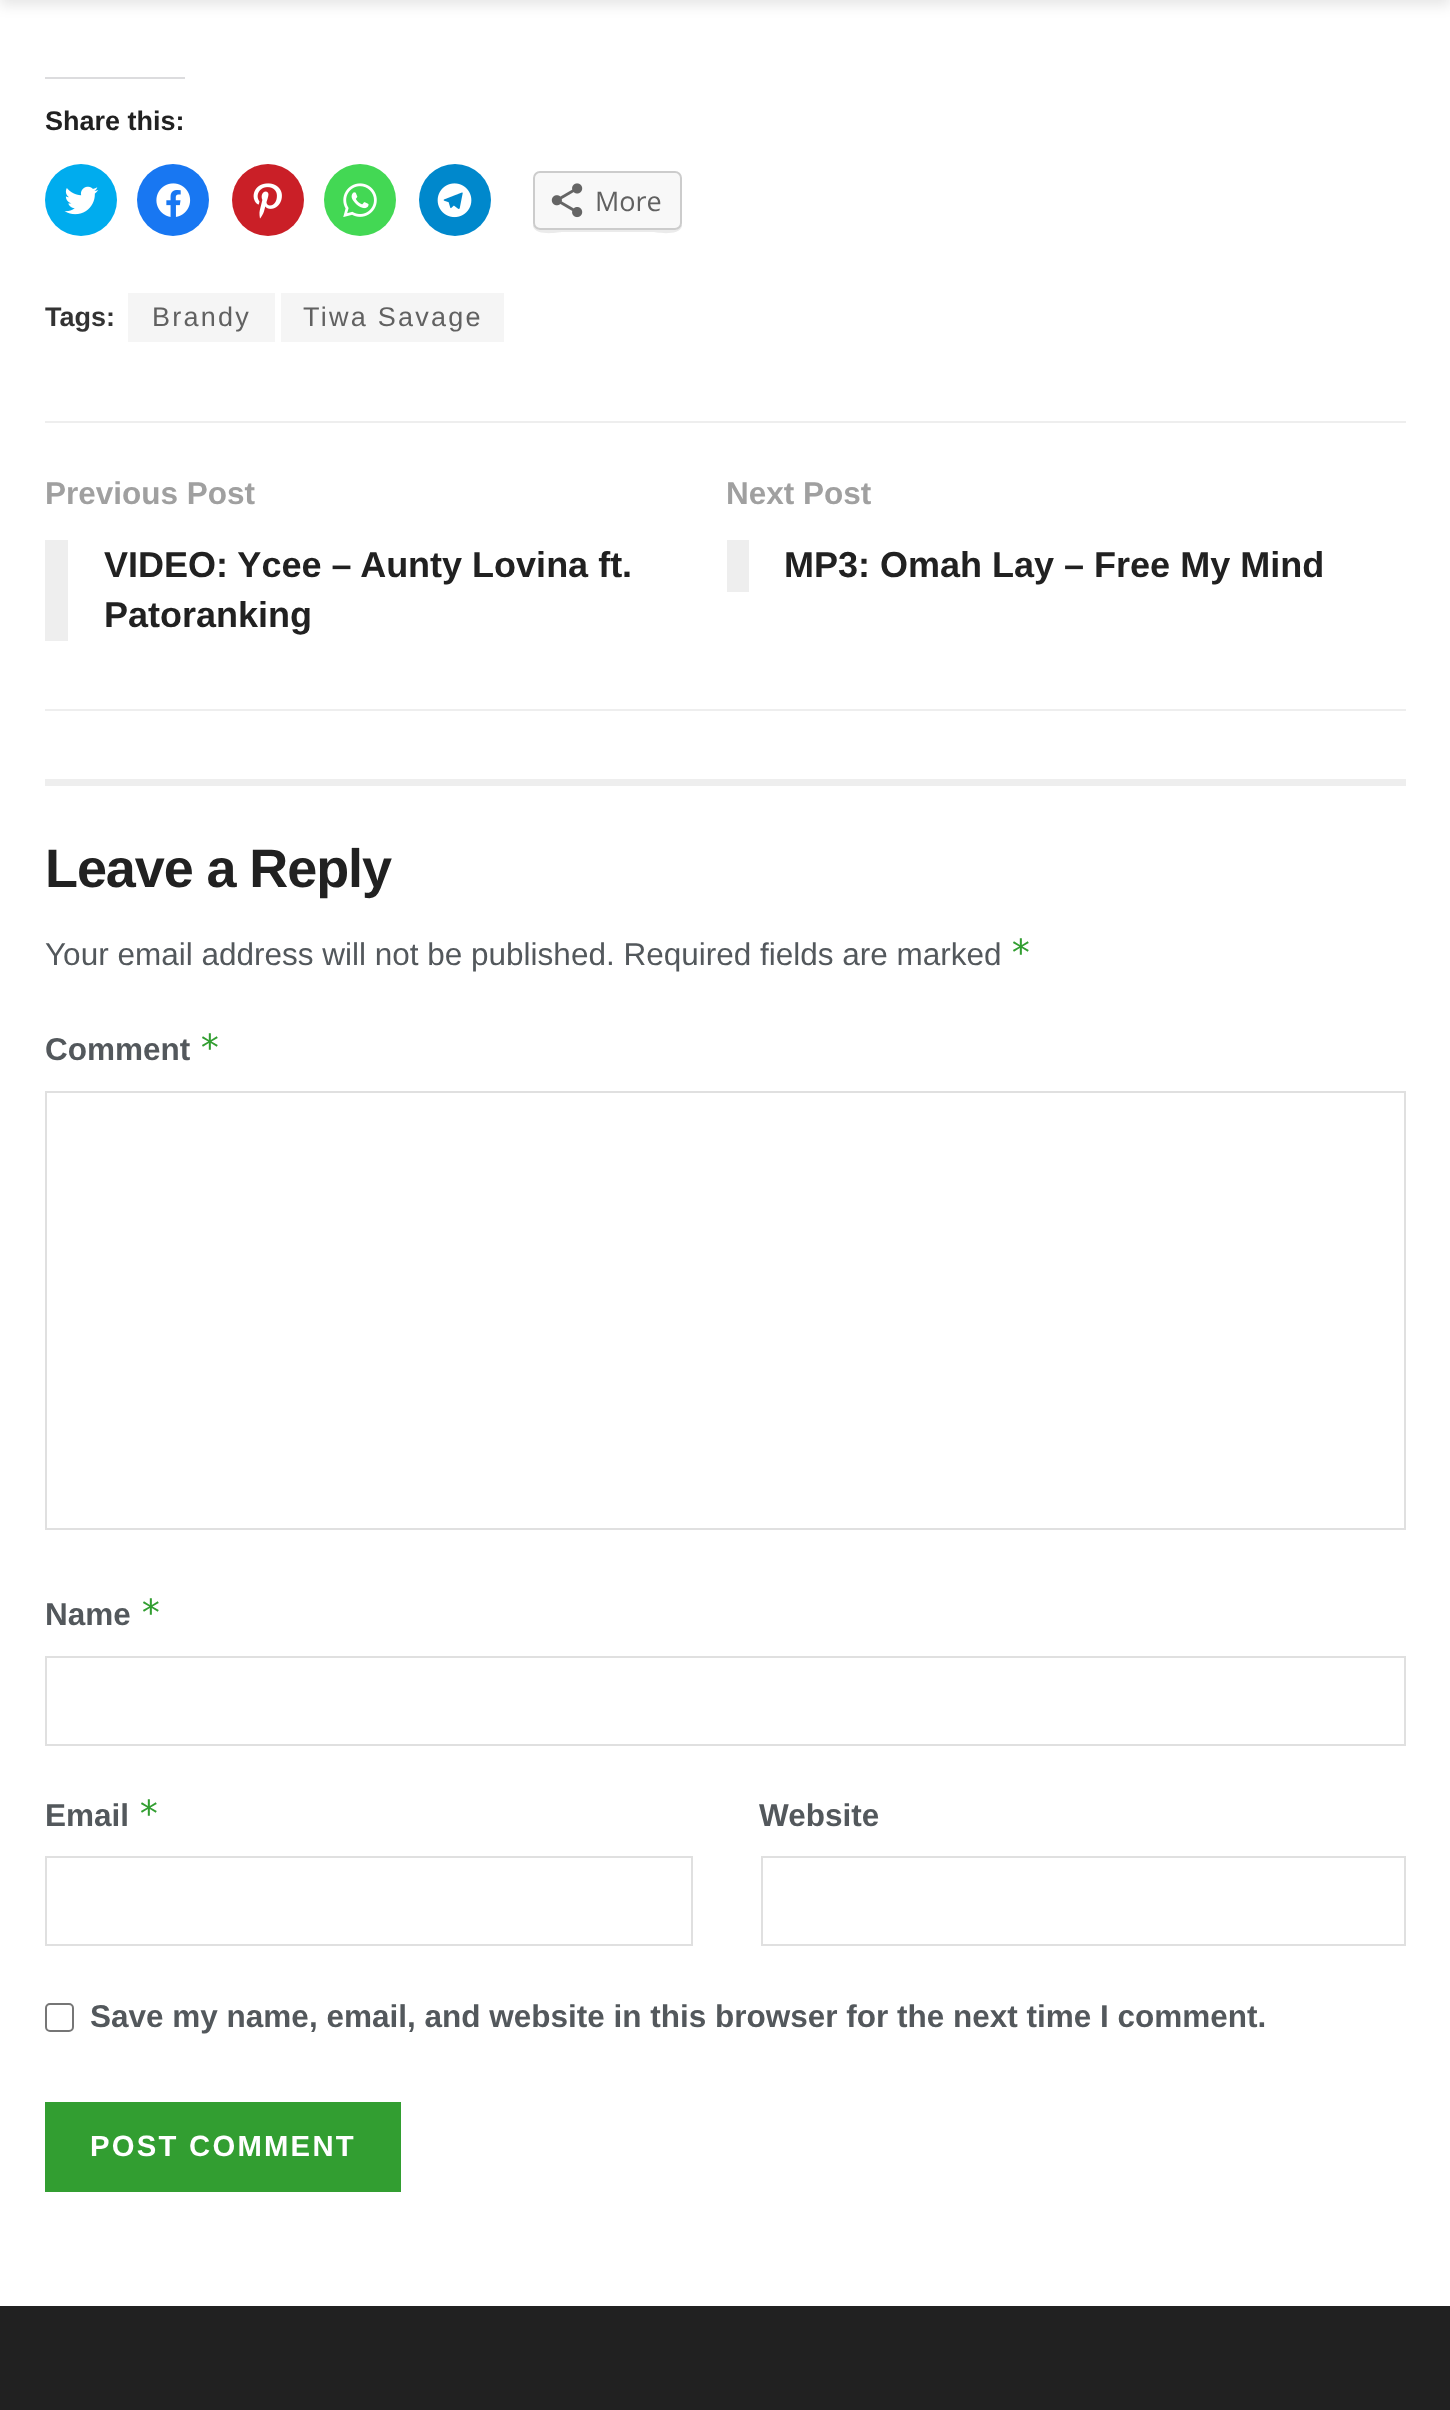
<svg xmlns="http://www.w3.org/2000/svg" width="1450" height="2410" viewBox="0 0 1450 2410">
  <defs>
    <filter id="blur1" x="-50%" y="-200%" width="200%" height="500%"><feGaussianBlur stdDeviation="7"/></filter>
  </defs>
  <rect width="100%" height="100%" fill="#ffffff"/>
  <rect x="0" y="-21" width="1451" height="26" fill="#000000" fill-opacity="0.1" filter="url(#blur1)"/>
  <rect x="45" y="77" width="140" height="2" fill="#dcdcde"/>
  <text x="45" y="130" font-family="Liberation Sans" font-size="27" font-weight="bold" fill="#212121">Share this:</text>
  <circle cx="81" cy="200" r="36" fill="#00acee"/>
  <image x="64" y="186" width="35" height="29" href="img1.png"/>
  <circle cx="173" cy="200" r="36" fill="#1877f2"/>
  <image x="156" y="183" width="35" height="34" href="img2.png"/>
  <circle cx="268" cy="200" r="36" fill="#ca1f27"/>
  <image x="253" y="183" width="29" height="36" href="img3.png"/>
  <circle cx="360" cy="200" r="36" fill="#43d854"/>
  <image x="343" y="183" width="34" height="34" href="img4.png"/>
  <circle cx="455" cy="200" r="36" fill="#0088cc"/>
  <image x="437" y="183" width="35" height="35" href="img5.png"/>
  <path d="M533 178V226C535 237 561 232 562 232H652C654 232 680 237 682 226V178V223C682 226 679 230 675 230H540C536 230 533 226 533 223Z" fill="#ebebeb"/>
  <rect x="534" y="172" width="147" height="57" rx="6" fill="#f8f8f8" stroke="#cccccc" stroke-width="2"/>
  <image x="551" y="183" width="32" height="35" href="img6.png"/>
  <text x="595" y="211" font-family="Open Sans" font-size="27" fill="#616161">More</text>
  <text x="45" y="326" font-family="Liberation Sans" font-size="27" font-weight="bold" fill="#333333">Tags:</text>
  <rect x="128" y="293" width="147" height="49" fill="#f5f5f5"/>
  <text x="152" y="326" font-family="Liberation Sans" font-size="27" letter-spacing="2.25" fill="#616161">Brandy</text>
  <rect x="281" y="293" width="223" height="49" fill="#f5f5f5"/>
  <text x="303" y="326" font-family="Liberation Sans" font-size="27" letter-spacing="2.25" fill="#616161">Tiwa Savage</text>
  <rect x="45" y="421" width="1361" height="2" fill="#eeeeee"/>
  <rect x="45" y="709" width="1361" height="2" fill="#eeeeee"/>
  <text x="45" y="504" font-family="Liberation Sans" font-size="31.5" font-weight="bold" fill="#a0a0a0">Previous Post</text>
  <rect x="45" y="540" width="23" height="101" fill="#eeeeee"/>
  <text x="104" y="577" font-family="Liberation Sans" font-size="36" font-weight="bold" fill="#212121">VIDEO: Ycee – Aunty Lovina ft.</text>
  <text x="104" y="627" font-family="Liberation Sans" font-size="36" font-weight="bold" fill="#212121">Patoranking</text>
  <text x="726" y="504" font-family="Liberation Sans" font-size="31.5" font-weight="bold" fill="#a0a0a0">Next Post</text>
  <rect x="727" y="540" width="22" height="52" fill="#eeeeee"/>
  <text x="784" y="577" font-family="Liberation Sans" font-size="36" font-weight="bold" fill="#212121">MP3: Omah Lay – Free My Mind</text>
  <rect x="45" y="779" width="1361" height="7" fill="#eeeeee"/>
  <text x="45" y="887" font-family="Liberation Sans" font-size="54" font-weight="bold" letter-spacing="-1.1" fill="#212121">Leave a Reply</text>
  <text x="45" y="965" font-family="Liberation Sans" font-size="31.5" fill="#53585c">Your email address will not be published. Required fields are marked</text>
  <text x="1010" y="965" font-family="DejaVu Sans Mono" font-size="36" fill="#329e31">*</text>
  <text x="45" y="1060" font-family="Liberation Sans" font-size="31.5" font-weight="bold" fill="#53585c">Comment</text>
  <text x="199" y="1060" font-family="DejaVu Sans Mono" font-size="36" fill="#329e31">*</text>
  <rect x="46" y="1092" width="1359" height="437" fill="none" stroke="#e0e0e0" stroke-width="2"/>
  <text x="45" y="1625" font-family="Liberation Sans" font-size="31.5" font-weight="bold" fill="#53585c">Name</text>
  <text x="140" y="1625" font-family="DejaVu Sans Mono" font-size="36" fill="#329e31">*</text>
  <rect x="46" y="1657" width="1359" height="88" fill="none" stroke="#e0e0e0" stroke-width="2"/>
  <text x="45" y="1826" font-family="Liberation Sans" font-size="31.5" font-weight="bold" fill="#53585c">Email</text>
  <text x="138" y="1826" font-family="DejaVu Sans Mono" font-size="36" fill="#329e31">*</text>
  <rect x="46" y="1857" width="646" height="88" fill="none" stroke="#e0e0e0" stroke-width="2"/>
  <text x="759" y="1826" font-family="Liberation Sans" font-size="31.5" font-weight="bold" fill="#53585c">Website</text>
  <rect x="762" y="1857" width="643" height="88" fill="none" stroke="#e0e0e0" stroke-width="2"/>
  <rect x="46" y="2004" width="27" height="27" rx="4" fill="none" stroke="#767676" stroke-width="2"/>
  <text x="90" y="2027" font-family="Liberation Sans" font-size="31.5" font-weight="bold" fill="#53585c">Save my name, email, and website in this browser for the next time I comment.</text>
  <rect x="45" y="2102" width="356" height="90" fill="#329e31"/>
  <text x="90" y="2156" font-family="Liberation Sans" font-size="29.25" font-weight="bold" letter-spacing="2.25" fill="#ffffff">POST COMMENT</text>
  <rect x="0" y="2306" width="1450" height="104" fill="#212121"/>
</svg>
